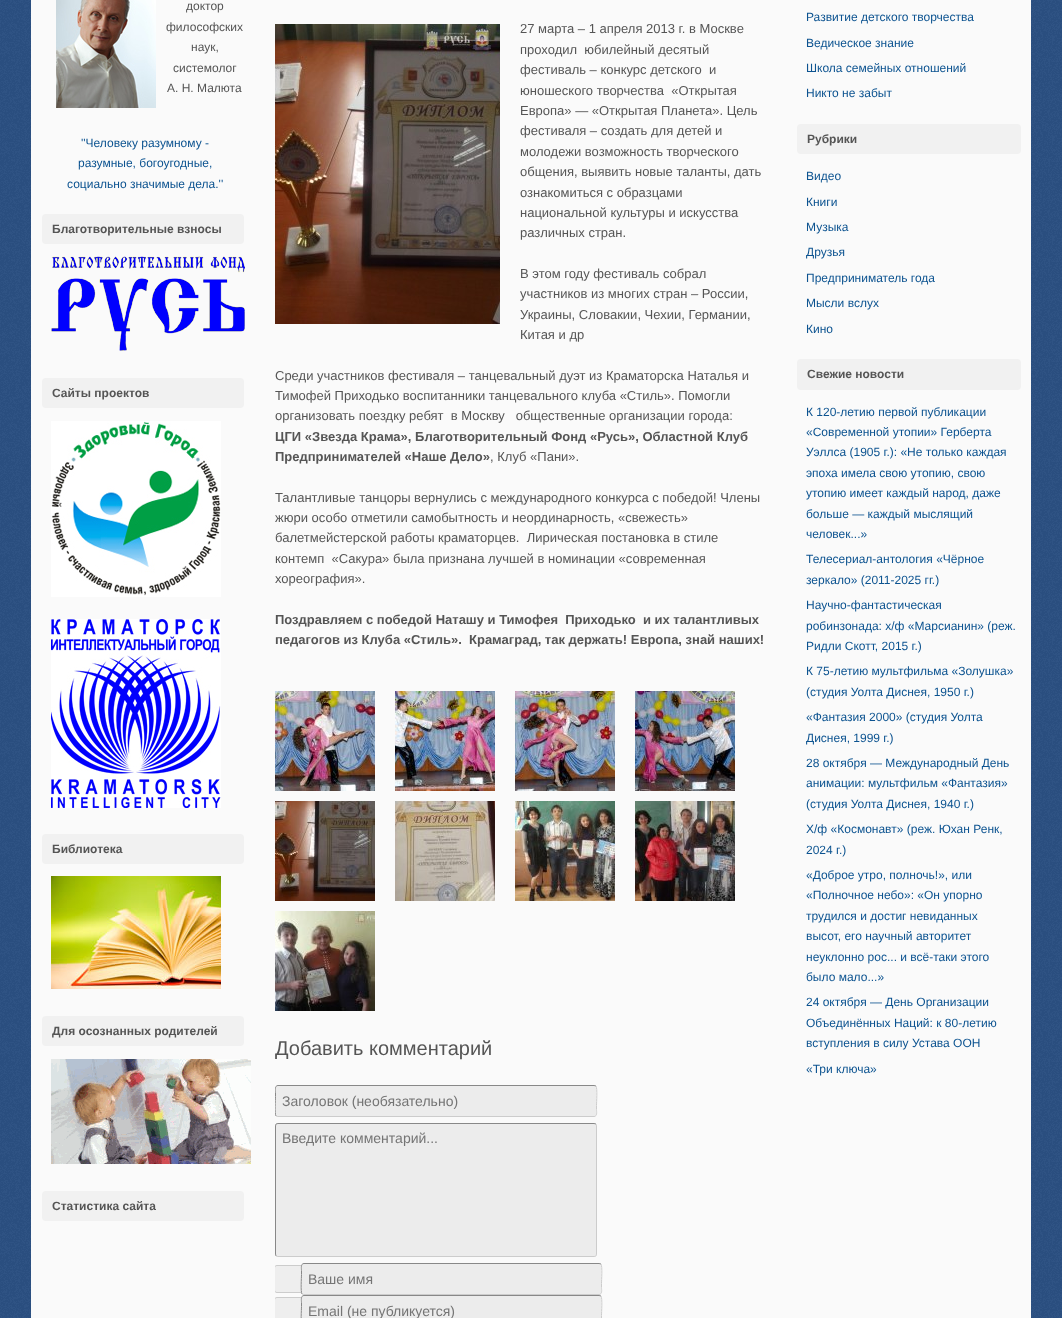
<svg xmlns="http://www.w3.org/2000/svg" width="1062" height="1318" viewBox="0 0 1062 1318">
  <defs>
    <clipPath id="clip1"><rect x="275" y="0" width="491" height="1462"/></clipPath>
  </defs>
  <rect width="100%" height="100%" fill="#ffffff"/>
  <image x="0" y="0" width="1062" height="1318" href="img1.png"/>
  <rect x="31" y="0" width="1000" height="1318" fill="#fafafa"/>
  <image x="56" y="0" width="100" height="108" href="img2.png"/>
  <text x="186" y="10" font-family="Liberation Sans" font-size="12" fill="#555555">доктор</text>
  <text x="166" y="31" font-family="Liberation Sans" font-size="12" fill="#555555">философских</text>
  <text x="191" y="51" font-family="Liberation Sans" font-size="12" fill="#555555">наук,</text>
  <text x="173" y="72" font-family="Liberation Sans" font-size="12" fill="#555555">системолог</text>
  <text x="167" y="92" font-family="Liberation Sans" font-size="12" fill="#555555">А. Н. Малюта</text>
  <text x="81" y="147" font-family="Liberation Sans" font-size="12" fill="#0c5390">''Человеку разумному -</text>
  <text x="78" y="167" font-family="Liberation Sans" font-size="12" fill="#0c5390">разумные, богоугодные,</text>
  <text x="67" y="188" font-family="Liberation Sans" font-size="12" fill="#0c5390">социально значимые дела.''</text>
  <rect x="42" y="214" width="202" height="30" rx="4" fill="#f1f1f1"/>
  <text x="52" y="233" font-family="Liberation Sans" font-size="12" font-weight="bold" fill="#555555">Благотворительные взносы</text>
  <image x="51" y="256" width="194" height="95" href="img3.png"/>
  <rect x="42" y="378" width="202" height="30" rx="4" fill="#f1f1f1"/>
  <text x="52" y="397" font-family="Liberation Sans" font-size="12" font-weight="bold" fill="#555555">Сайты проектов</text>
  <image x="51" y="421" width="170" height="176" href="img4.png"/>
  <image x="51" y="619" width="170" height="189" href="img5.png"/>
  <rect x="42" y="834" width="202" height="30" rx="4" fill="#f1f1f1"/>
  <text x="52" y="853" font-family="Liberation Sans" font-size="12" font-weight="bold" fill="#555555">Библиотека</text>
  <image x="51" y="876" width="170" height="113" href="img6.png"/>
  <rect x="42" y="1016" width="202" height="30" rx="4" fill="#f1f1f1"/>
  <text x="52" y="1035" font-family="Liberation Sans" font-size="12" font-weight="bold" fill="#555555">Для осознанных родителей</text>
  <image x="51" y="1059" width="200" height="105" href="img7.png"/>
  <rect x="42" y="1191" width="202" height="30" rx="4" fill="#f1f1f1"/>
  <text x="52" y="1210" font-family="Liberation Sans" font-size="12" font-weight="bold" fill="#555555">Статистика сайта</text>
  <text x="520" y="33" font-family="Liberation Sans" font-size="13" fill="#555555">27 марта – 1 апреля 2013 г. в Москве</text>
  <text x="520" y="54" font-family="Liberation Sans" font-size="13" fill="#555555" xml:space="preserve">проходил  юбилейный десятый</text>
  <text x="520" y="74" font-family="Liberation Sans" font-size="13" fill="#555555" xml:space="preserve">фестиваль – конкурс детского  и</text>
  <text x="520" y="95" font-family="Liberation Sans" font-size="13" fill="#555555" xml:space="preserve">юношеского творчества  «Открытая</text>
  <text x="520" y="115" font-family="Liberation Sans" font-size="13" fill="#555555">Европа» — «Открытая Планета». Цель</text>
  <text x="520" y="135" font-family="Liberation Sans" font-size="13" fill="#555555">фестиваля – создать для детей и</text>
  <text x="520" y="156" font-family="Liberation Sans" font-size="13" fill="#555555">молодежи возможность творческого</text>
  <text x="520" y="176" font-family="Liberation Sans" font-size="13" fill="#555555">общения, выявить новые таланты, дать</text>
  <text x="520" y="197" font-family="Liberation Sans" font-size="13" fill="#555555">ознакомиться с образцами</text>
  <text x="520" y="217" font-family="Liberation Sans" font-size="13" fill="#555555">национальной культуры и искусства</text>
  <text x="520" y="237" font-family="Liberation Sans" font-size="13" fill="#555555">различных стран.</text>
  <text x="520" y="278" font-family="Liberation Sans" font-size="13" fill="#555555">В этом году фестиваль собрал</text>
  <text x="520" y="298" font-family="Liberation Sans" font-size="13" fill="#555555">участников из многих стран – России,</text>
  <text x="520" y="319" font-family="Liberation Sans" font-size="13" fill="#555555">Украины, Словакии, Чехии, Германии,</text>
  <text x="520" y="339" font-family="Liberation Sans" font-size="13" fill="#555555">Китая и др</text>
  <text x="275" y="380" font-family="Liberation Sans" font-size="13" fill="#555555">Среди участников фестиваля – танцевальный дуэт из Краматорска Наталья и</text>
  <text x="275" y="400" font-family="Liberation Sans" font-size="13" fill="#555555">Тимофей Приходько воспитанники танцевального клуба «Стиль». Помогли</text>
  <text x="275" y="420" font-family="Liberation Sans" font-size="13" fill="#555555" xml:space="preserve">организовать поездку ребят  в Москву   общественные организации города:</text>
  <text x="275" y="441" font-family="Liberation Sans" font-size="13" font-weight="bold" fill="#555555">ЦГИ «Звезда Крама», Благотворительный Фонд «Русь», Областной Клуб</text>
  <text x="275" y="461" font-family="Liberation Sans" font-size="13" font-weight="bold" fill="#555555">Предпринимателей «Наше Дело»</text>
  <text x="490" y="461" font-family="Liberation Sans" font-size="13" fill="#555555">, Клуб «Пани».</text>
  <text x="275" y="502" font-family="Liberation Sans" font-size="13" fill="#555555">Талантливые танцоры вернулись с международного конкурса с победой! Члены</text>
  <text x="275" y="522" font-family="Liberation Sans" font-size="13" fill="#555555">жюри особо отметили самобытность и неординарность, «свежесть»</text>
  <text x="275" y="542" font-family="Liberation Sans" font-size="13" fill="#555555" xml:space="preserve">балетмейстерской работы краматорцев.  Лирическая постановка в стиле</text>
  <text x="275" y="563" font-family="Liberation Sans" font-size="13" fill="#555555" xml:space="preserve">контемп  «Сакура» была признана лучшей в номинации «современная</text>
  <text x="275" y="583" font-family="Liberation Sans" font-size="13" fill="#555555">хореография».</text>
  <text x="275" y="624" font-family="Liberation Sans" font-size="13" font-weight="bold" fill="#555555" xml:space="preserve">Поздравляем с победой Наташу и Тимофея  Приходько  и их талантливых</text>
  <text x="275" y="644" font-family="Liberation Sans" font-size="13" font-weight="bold" fill="#555555" xml:space="preserve">педагогов из Клуба «Стиль».  Крамаград, так держать! Европа, знай наших!</text>
  <image x="275" y="24" width="225" height="300" href="img8.png"/>
  <image x="275" y="691" width="100" height="100" href="img9.png"/>
  <image x="395" y="691" width="100" height="100" href="img10.png"/>
  <image x="515" y="691" width="100" height="100" href="img11.png"/>
  <image x="635" y="691" width="100" height="100" href="img12.png"/>
  <image x="275" y="801" width="100" height="100" href="img13.png"/>
  <image x="395" y="801" width="100" height="100" href="img14.png"/>
  <image x="515" y="801" width="100" height="100" href="img15.png"/>
  <image x="635" y="801" width="100" height="100" href="img16.png"/>
  <image x="275" y="911" width="100" height="100" href="img17.png"/>
  <text x="275" y="1055" font-family="Liberation Sans" font-size="20" fill="#555555">Добавить комментарий</text>
  <rect x="275" y="1085" width="322" height="32" rx="3" fill="#ffffff"/>
  <path d="M278 1086C277 1086 276 1087 276 1088V1114C276 1115 277 1116 278 1116H594C595 1116 596 1115 596 1114V1088C596 1087 595 1086 594 1086Z" fill="#ececec"/>
  <path d="M596 1086C597.5 1088 596.5 1102.5 596.5 1105.5V1109.5C596.5 1111.5 597.5 1116.5 594 1116.5H278L276 1116" fill="none" stroke="#cccccc"/>
  <g clip-path="url(#clip1)">
    <path d="M276 1116C274.5 1114 275.5 1099.5 275.5 1096.5V1092.5C275.5 1090.5 274.5 1085.5 278 1085.5H594L596 1086" fill="none" stroke="#888888"/>
  </g>
  <text x="282" y="1106" font-family="Liberation Sans" font-size="14" fill="#757575">Заголовок (необязательно)</text>
  <rect x="275" y="1123" width="322" height="134" rx="3" fill="#ffffff"/>
  <path d="M278 1124C277 1124 276 1125 276 1126V1254C276 1255 277 1256 278 1256H594C595 1256 596 1255 596 1254V1126C596 1125 595 1124 594 1124Z" fill="#ececec"/>
  <path d="M596 1124L596.5 1126V1254L596 1256L594 1256.5H278L276 1256" fill="none" stroke="#cccccc"/>
  <path d="M276 1256L275.5 1254V1126L276 1124L278 1123.5H594L596 1124" fill="none" stroke="#888888"/>
  <text x="282" y="1143" font-family="Liberation Sans" font-size="14" fill="#757575">Введите комментарий...</text>
  <g clip-path="url(#clip1)">
    <path d="M277 1265.5H301.5V1292.5H277C275.5 1292.5 274.5 1291.5 274.5 1290V1268C274.5 1266.5 275.5 1265.5 277 1265.5Z" fill="#eeeeee" stroke="#cccccc"/>
  </g>
  <rect x="301" y="1263" width="301" height="32" rx="3" fill="#ffffff"/>
  <path d="M304 1264C303 1264 302 1265 302 1266V1292C302 1293 303 1294 304 1294H599C600 1294 601 1293 601 1292V1266C601 1265 600 1264 599 1264Z" fill="#ececec"/>
  <path d="M601 1264C602.5 1266 601.5 1280.5 601.5 1283.5V1287.5C601.5 1289.5 602.5 1294.5 599 1294.5H304L302 1294" fill="none" stroke="#cccccc"/>
  <path d="M302 1294C300.5 1292 301.5 1277.5 301.5 1274.5V1270.5C301.5 1268.5 300.5 1263.5 304 1263.5H599L601 1264" fill="none" stroke="#888888"/>
  <text x="308" y="1284" font-family="Liberation Sans" font-size="14" fill="#757575">Ваше имя</text>
  <g clip-path="url(#clip1)">
    <path d="M277 1297.5H301.5V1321.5H277C275.5 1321.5 274.5 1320.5 274.5 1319V1300C274.5 1298.5 275.5 1297.5 277 1297.5Z" fill="#eeeeee" stroke="#cccccc"/>
  </g>
  <rect x="301" y="1295" width="301" height="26" rx="3" fill="#ffffff"/>
  <path d="M304 1296C303 1296 302 1297 302 1298V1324C302 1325 303 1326 304 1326H599C600 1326 601 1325 601 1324V1298C601 1297 600 1296 599 1296Z" fill="#ececec"/>
  <path d="M601 1296C602.5 1298 601.5 1312.5 601.5 1315.5V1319.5C601.5 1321.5 602.5 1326.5 599 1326.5H304L302 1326" fill="none" stroke="#cccccc"/>
  <path d="M302 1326C300.5 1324 301.5 1309.5 301.5 1306.5V1302.5C301.5 1300.5 300.5 1295.5 304 1295.5H599L601 1296" fill="none" stroke="#888888"/>
  <text x="308" y="1316" font-family="Liberation Sans" font-size="14" fill="#757575">Email (не публикуется)</text>
  <text x="806" y="21" font-family="Liberation Sans" font-size="12" fill="#0c5390">Развитие детского творчества</text>
  <text x="806" y="47" font-family="Liberation Sans" font-size="12" fill="#0c5390">Ведическое знание</text>
  <text x="806" y="72" font-family="Liberation Sans" font-size="12" fill="#0c5390">Школа семейных отношений</text>
  <text x="806" y="97" font-family="Liberation Sans" font-size="12" fill="#0c5390">Никто не забыт</text>
  <rect x="797" y="124" width="224" height="30" rx="4" fill="#f1f1f1"/>
  <text x="807" y="143" font-family="Liberation Sans" font-size="12" font-weight="bold" fill="#555555">Рубрики</text>
  <text x="806" y="180" font-family="Liberation Sans" font-size="12" fill="#0c5390">Видео</text>
  <text x="806" y="206" font-family="Liberation Sans" font-size="12" fill="#0c5390">Книги</text>
  <text x="806" y="231" font-family="Liberation Sans" font-size="12" fill="#0c5390">Музыка</text>
  <text x="806" y="256" font-family="Liberation Sans" font-size="12" fill="#0c5390">Друзья</text>
  <text x="806" y="282" font-family="Liberation Sans" font-size="12" fill="#0c5390">Предприниматель года</text>
  <text x="806" y="307" font-family="Liberation Sans" font-size="12" fill="#0c5390">Мысли вслух</text>
  <text x="806" y="333" font-family="Liberation Sans" font-size="12" fill="#0c5390">Кино</text>
  <rect x="797" y="359" width="224" height="31" rx="4" fill="#f1f1f1"/>
  <text x="807" y="378" font-family="Liberation Sans" font-size="12" font-weight="bold" fill="#555555">Свежие новости</text>
  <text x="806" y="416" font-family="Liberation Sans" font-size="12" fill="#0c5390">К 120-летию первой публикации</text>
  <text x="806" y="436" font-family="Liberation Sans" font-size="12" fill="#0c5390">«Современной утопии» Герберта</text>
  <text x="806" y="456" font-family="Liberation Sans" font-size="12" fill="#0c5390">Уэллса (1905 г.): «Не только каждая</text>
  <text x="806" y="477" font-family="Liberation Sans" font-size="12" fill="#0c5390">эпоха имела свою утопию, свою</text>
  <text x="806" y="497" font-family="Liberation Sans" font-size="12" fill="#0c5390">утопию имеет каждый народ, даже</text>
  <text x="806" y="518" font-family="Liberation Sans" font-size="12" fill="#0c5390">больше — каждый мыслящий</text>
  <text x="806" y="538" font-family="Liberation Sans" font-size="12" fill="#0c5390">человек...»</text>
  <text x="806" y="563" font-family="Liberation Sans" font-size="12" fill="#0c5390">Телесериал-антология «Чёрное</text>
  <text x="806" y="584" font-family="Liberation Sans" font-size="12" fill="#0c5390">зеркало» (2011-2025 гг.)</text>
  <text x="806" y="609" font-family="Liberation Sans" font-size="12" fill="#0c5390">Научно-фантастическая</text>
  <text x="806" y="630" font-family="Liberation Sans" font-size="12" fill="#0c5390">робинзонада: х/ф «Марсианин» (реж.</text>
  <text x="806" y="650" font-family="Liberation Sans" font-size="12" fill="#0c5390">Ридли Скотт, 2015 г.)</text>
  <text x="806" y="675" font-family="Liberation Sans" font-size="12" fill="#0c5390">К 75-летию мультфильма «Золушка»</text>
  <text x="806" y="696" font-family="Liberation Sans" font-size="12" fill="#0c5390">(студия Уолта Диснея, 1950 г.)</text>
  <text x="806" y="721" font-family="Liberation Sans" font-size="12" fill="#0c5390">«Фантазия 2000» (студия Уолта</text>
  <text x="806" y="742" font-family="Liberation Sans" font-size="12" fill="#0c5390">Диснея, 1999 г.)</text>
  <text x="806" y="767" font-family="Liberation Sans" font-size="12" fill="#0c5390">28 октября — Международный День</text>
  <text x="806" y="787" font-family="Liberation Sans" font-size="12" fill="#0c5390">анимации: мультфильм «Фантазия»</text>
  <text x="806" y="808" font-family="Liberation Sans" font-size="12" fill="#0c5390">(студия Уолта Диснея, 1940 г.)</text>
  <text x="806" y="833" font-family="Liberation Sans" font-size="12" fill="#0c5390">Х/ф «Космонавт» (реж. Юхан Ренк,</text>
  <text x="806" y="854" font-family="Liberation Sans" font-size="12" fill="#0c5390">2024 г.)</text>
  <text x="806" y="879" font-family="Liberation Sans" font-size="12" fill="#0c5390">«Доброе утро, полночь!», или</text>
  <text x="806" y="899" font-family="Liberation Sans" font-size="12" fill="#0c5390">«Полночное небо»: «Он упорно</text>
  <text x="806" y="920" font-family="Liberation Sans" font-size="12" fill="#0c5390">трудился и достиг невиданных</text>
  <text x="806" y="940" font-family="Liberation Sans" font-size="12" fill="#0c5390">высот, его научный авторитет</text>
  <text x="806" y="961" font-family="Liberation Sans" font-size="12" fill="#0c5390">неуклонно рос... и всё-таки этого</text>
  <text x="806" y="981" font-family="Liberation Sans" font-size="12" fill="#0c5390">было мало...»</text>
  <text x="806" y="1006" font-family="Liberation Sans" font-size="12" fill="#0c5390">24 октября — День Организации</text>
  <text x="806" y="1027" font-family="Liberation Sans" font-size="12" fill="#0c5390">Объединённых Наций: к 80-летию</text>
  <text x="806" y="1047" font-family="Liberation Sans" font-size="12" fill="#0c5390">вступления в силу Устава ООН</text>
  <text x="806" y="1073" font-family="Liberation Sans" font-size="12" fill="#0c5390">«Три ключа»</text>
</svg>
